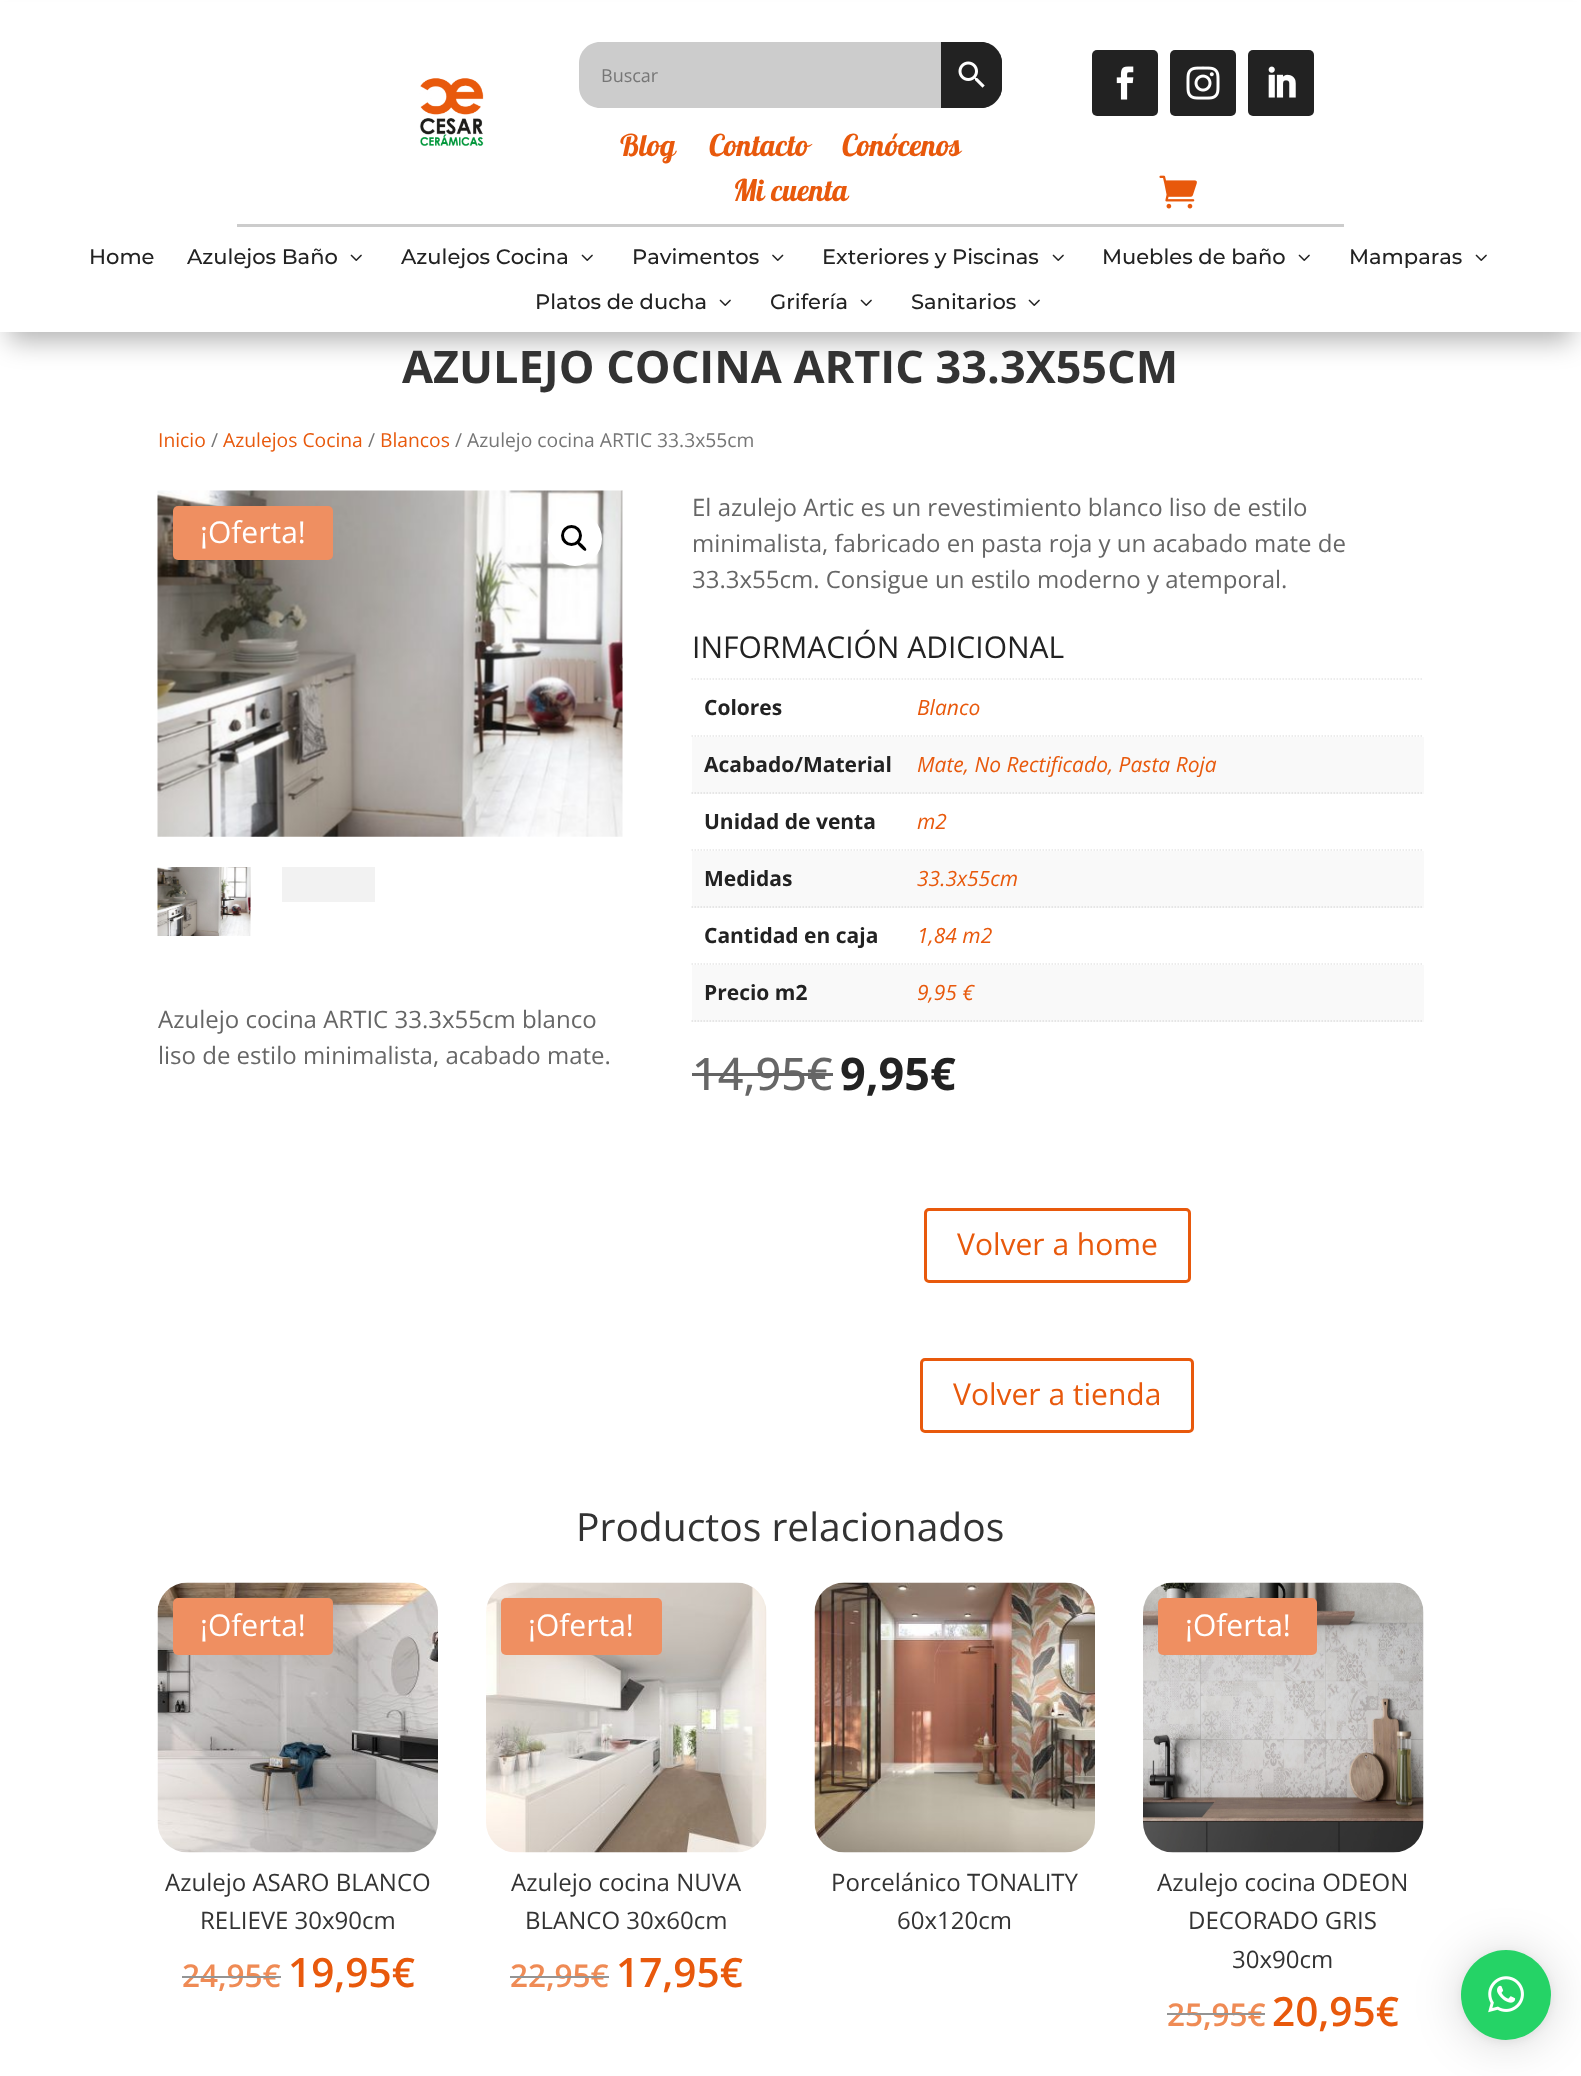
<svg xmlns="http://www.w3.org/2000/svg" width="1581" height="2076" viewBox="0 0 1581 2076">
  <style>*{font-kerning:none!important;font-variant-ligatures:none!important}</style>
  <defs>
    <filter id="blur1" x="-50%" y="-200%" width="200%" height="500%"><feGaussianBlur stdDeviation="13.5"/></filter>
    <filter id="blur2" x="-50%" y="-200%" width="200%" height="500%"><feGaussianBlur stdDeviation="24"/></filter>
    <filter id="blur3" x="-50%" y="-200%" width="200%" height="500%"><feGaussianBlur stdDeviation="4.5"/></filter>
  </defs>
  <rect width="100%" height="100%" fill="#ffffff"/>
  <rect x="9" y="27" width="1563" height="314" fill="#000000" fill-opacity="0.3" filter="url(#blur1)"/>
  <rect x="0" y="2" width="1581" height="330" fill="#ffffff"/>
  <rect x="237" y="224" width="1107" height="3" fill="#cccccc"/>
  <image x="419" y="78" width="65" height="68" href="img1.png"/>
  <path d="M939 42H981C992.5 42 1002 51.5 1002 63V87C1002 98.5 992.5 108 981 108H939Z" fill="#222222"/>
  <path d="M939 42V108H981C984 108 987 107 990 106H941V44H990C987 43 984 42 981 42ZM1002 63C1002 60 1001 57 1000 54V96C1001 93 1002 90 1002 87Z" fill="#222222" fill-rule="evenodd"/>
  <path d="M600 42H941V108H600C588.5 108 579 98.5 579 87V63C579 51.5 588.5 42 600 42Z" fill="#cccccc"/>
  <text x="601" y="82" font-family="Open Sans" font-size="18" fill="#767676">Buscar</text>
  <image x="958" y="61" width="27" height="27" href="img2.png"/>
  <text x="620" y="156" font-family="Lobster" font-size="30" fill="#e8590c">Blog</text>
  <text x="709" y="156" font-family="Lobster" font-size="30" fill="#e8590c">Contacto</text>
  <text x="842" y="156" font-family="Lobster" font-size="30" fill="#e8590c">Conócenos</text>
  <text x="733" y="201" font-family="Lobster" font-size="30" fill="#e8590c">Mi cuenta</text>
  <rect x="1092" y="50" width="66" height="66" rx="5" fill="#222222"/>
  <image x="1116" y="66" width="18" height="34" href="img3.png"/>
  <rect x="1170" y="50" width="66" height="66" rx="5" fill="#222222"/>
  <image x="1186" y="66" width="34" height="34" href="img4.png"/>
  <rect x="1248" y="50" width="66" height="66" rx="5" fill="#222222"/>
  <image x="1268" y="66" width="28" height="32" href="img5.png"/>
  <image x="1159" y="175" width="38" height="34" href="img6.png"/>
  <text x="89" y="264" font-family="Montserrat" font-size="21" font-weight="100" fill="#222222">Home</text>
  <text x="187" y="264" font-family="Montserrat" font-size="21" font-weight="100" fill="#222222">Azulejos Baño</text>
  <image x="350" y="254" width="12" height="7" href="img7.png"/>
  <text x="401" y="264" font-family="Montserrat" font-size="21" font-weight="100" fill="#222222">Azulejos Cocina</text>
  <image x="581" y="254" width="12" height="7" href="img7.png"/>
  <text x="632" y="264" font-family="Montserrat" font-size="21" font-weight="100" fill="#222222">Pavimentos</text>
  <image x="772" y="254" width="12" height="7" href="img8.png"/>
  <text x="822" y="264" font-family="Montserrat" font-size="21" font-weight="100" fill="#222222">Exteriores y Piscinas</text>
  <image x="1052" y="254" width="12" height="7" href="img7.png"/>
  <text x="1102" y="264" font-family="Montserrat" font-size="21" font-weight="100" fill="#222222">Muebles de baño</text>
  <image x="1298" y="254" width="12" height="7" href="img7.png"/>
  <text x="1349" y="264" font-family="Montserrat" font-size="21" font-weight="100" fill="#222222">Mamparas</text>
  <image x="1475" y="254" width="12" height="7" href="img7.png"/>
  <text x="535" y="309" font-family="Montserrat" font-size="21" font-weight="100" fill="#222222">Platos de ducha</text>
  <image x="719" y="299" width="12" height="7" href="img7.png"/>
  <text x="770" y="309" font-family="Montserrat" font-size="21" font-weight="100" fill="#222222">Grifería</text>
  <image x="860" y="299" width="12" height="7" href="img7.png"/>
  <text x="911" y="309" font-family="Montserrat" font-size="21" font-weight="100" fill="#222222">Sanitarios</text>
  <image x="1028" y="299" width="12" height="7" href="img7.png"/>
  <text x="402" y="383" font-family="Open Sans" font-size="45" font-weight="bold" fill="#333333">AZULEJO COCINA ARTIC 33.3X55CM</text>
  <text x="158" y="447" font-family="Open Sans" font-size="19.3" fill="#e8590c">Inicio</text>
  <text x="211" y="447" font-family="Open Sans" font-size="19.3" fill="#767676">/</text>
  <text x="223" y="447" font-family="Open Sans" font-size="19.3" fill="#e8590c">Azulejos Cocina</text>
  <text x="368" y="447" font-family="Open Sans" font-size="19.3" fill="#767676">/</text>
  <text x="380" y="447" font-family="Open Sans" font-size="19.3" fill="#e8590c">Blancos</text>
  <text x="455" y="447" font-family="Open Sans" font-size="19.3" fill="#767676">/ Azulejo cocina ARTIC 33.3x55cm</text>
  <image x="157" y="490" width="466" height="347" href="img9.png"/>
  <image x="622" y="491" width="1" height="167" href="img10.png"/>
  <circle cx="575" cy="539" r="27" fill="#ffffff"/>
  <circle cx="571.5" cy="535.5" r="9" fill="none" stroke="#000000" stroke-width="3"/>
  <path d="M577.5 542C579 540.5 582 544 583 545C583.5 546 587.5 548.5 586 550.5C584.5 552 581.5 548 580.5 547.5C580 546.5 576 543.5 577.5 542Z" fill="#000000"/>
  <image x="157" y="867" width="94" height="69" href="img11.png"/>
  <rect x="282" y="867" width="93" height="35" fill="#f2f2f2"/>
  <rect x="173" y="506" width="160" height="54" rx="5" fill="#ef8f61"/>
  <text x="200" y="543" font-family="Open Sans" font-size="30" fill="#ffffff">¡Oferta!</text>
  <text x="158" y="1028" font-family="Open Sans" font-size="24" fill="#666666">Azulejo cocina ARTIC 33.3x55cm blanco</text>
  <text x="158" y="1064" font-family="Open Sans" font-size="24" fill="#666666">liso de estilo minimalista, acabado mate.</text>
  <text x="692" y="516" font-family="Open Sans" font-size="24" fill="#666666">El azulejo Artic es un revestimiento blanco liso de estilo</text>
  <text x="692" y="552" font-family="Open Sans" font-size="24" fill="#666666">minimalista, fabricado en pasta roja y un acabado mate de</text>
  <text x="692" y="588" font-family="Open Sans" font-size="24" fill="#666666">33.3x55cm. Consigue un estilo moderno y atemporal.</text>
  <text x="692" y="658" font-family="Open Sans" font-size="30" fill="#222222">INFORMACIÓN ADICIONAL</text>
  <path d="M691.5 679H1423.5" fill="none" stroke="#e6e6e6" stroke-width="1.5" stroke-dasharray="1.5 1.5"/>
  <path d="M691.5 736H916.5" fill="none" stroke="#e6e6e6" stroke-width="1.5" stroke-dasharray="1.5 1.5"/>
  <text x="704" y="715" font-family="Open Sans" font-size="21" font-weight="bold" fill="#222222">Colores</text>
  <path d="M916.5 736H1423.5" fill="none" stroke="#e6e6e6" stroke-width="1.5" stroke-dasharray="1.5 1.5"/>
  <text x="917" y="715" font-family="Open Sans" font-size="21" font-style="italic" fill="#e8590c">Blanco</text>
  <rect x="692" y="737" width="732" height="57" fill="#f9f9f9"/>
  <path d="M691.5 793H916.5" fill="none" stroke="#e0e0e0" stroke-width="1.5" stroke-dasharray="1.5 1.5"/>
  <text x="704" y="772" font-family="Open Sans" font-size="21" font-weight="bold" fill="#222222">Acabado/Material</text>
  <path d="M916.5 793H1423.5" fill="none" stroke="#e0e0e0" stroke-width="1.5" stroke-dasharray="1.5 1.5"/>
  <text x="917" y="772" font-family="Open Sans" font-size="21" font-style="italic" fill="#e8590c">Mate, No Rectificado, Pasta Roja</text>
  <path d="M691.5 850H916.5" fill="none" stroke="#e6e6e6" stroke-width="1.5" stroke-dasharray="1.5 1.5"/>
  <text x="704" y="829" font-family="Open Sans" font-size="21" font-weight="bold" fill="#222222">Unidad de venta</text>
  <path d="M916.5 850H1423.5" fill="none" stroke="#e6e6e6" stroke-width="1.5" stroke-dasharray="1.5 1.5"/>
  <text x="917" y="829" font-family="Open Sans" font-size="21" font-style="italic" fill="#e8590c">m2</text>
  <rect x="692" y="851" width="732" height="57" fill="#f9f9f9"/>
  <path d="M691.5 907H916.5" fill="none" stroke="#e0e0e0" stroke-width="1.5" stroke-dasharray="1.5 1.5"/>
  <text x="704" y="886" font-family="Open Sans" font-size="21" font-weight="bold" fill="#222222">Medidas</text>
  <path d="M916.5 907H1423.5" fill="none" stroke="#e0e0e0" stroke-width="1.5" stroke-dasharray="1.5 1.5"/>
  <text x="917" y="886" font-family="Open Sans" font-size="21" font-style="italic" fill="#e8590c">33.3x55cm</text>
  <path d="M691.5 964H916.5" fill="none" stroke="#e6e6e6" stroke-width="1.5" stroke-dasharray="1.5 1.5"/>
  <text x="704" y="943" font-family="Open Sans" font-size="21" font-weight="bold" fill="#222222">Cantidad en caja</text>
  <path d="M916.5 964H1423.5" fill="none" stroke="#e6e6e6" stroke-width="1.5" stroke-dasharray="1.5 1.5"/>
  <text x="917" y="943" font-family="Open Sans" font-size="21" font-style="italic" fill="#e8590c">1,84 m2</text>
  <rect x="692" y="965" width="732" height="57" fill="#f9f9f9"/>
  <path d="M691.5 1021H916.5" fill="none" stroke="#e0e0e0" stroke-width="1.5" stroke-dasharray="1.5 1.5"/>
  <text x="704" y="1000" font-family="Open Sans" font-size="21" font-weight="bold" fill="#222222">Precio m2</text>
  <path d="M916.5 1021H1423.5" fill="none" stroke="#e0e0e0" stroke-width="1.5" stroke-dasharray="1.5 1.5"/>
  <text x="917" y="1000" font-family="Open Sans" font-size="21" font-style="italic" fill="#e8590c">9,95 €</text>
  <text x="692" y="1090" font-family="Open Sans" font-size="45" font-weight="500" fill="#666666">14,95€</text>
  <rect x="692" y="1073" width="141" height="3" fill="#646464"/>
  <text x="840" y="1090" font-family="Open Sans" font-size="45" font-weight="bold" fill="#222222">9,95€</text>
  <rect x="925.5" y="1209.5" width="264" height="72" rx="3.5" fill="none" stroke="#e8590c" stroke-width="3"/>
  <text x="957" y="1255" font-family="Open Sans" font-size="30" fill="#e8590c">Volver a home</text>
  <rect x="921.5" y="1359.5" width="271" height="72" rx="3.5" fill="none" stroke="#e8590c" stroke-width="3"/>
  <text x="953" y="1405" font-family="Open Sans" font-size="30" fill="#e8590c">Volver a tienda</text>
  <text x="576" y="1541" font-family="Open Sans" font-size="39" fill="#333333">Productos relacionados</text>
  <image x="157" y="1582" width="281" height="271" href="img12.png"/>
  <rect x="173" y="1598" width="160" height="57" rx="5" fill="#ef8f61"/>
  <text x="200" y="1636" font-family="Open Sans" font-size="30" fill="#ffffff">¡Oferta!</text>
  <text x="165" y="1891" font-family="Open Sans" font-size="24" fill="#333333">Azulejo ASARO BLANCO</text>
  <text x="200" y="1929" font-family="Open Sans" font-size="24" fill="#333333">RELIEVE 30x90cm</text>
  <text x="182" y="1987" font-family="Open Sans" font-size="31.5" font-weight="600" fill="#ef8b55">24,95€</text>
  <rect x="182" y="1976" width="99" height="2" fill="#949494"/>
  <text x="288" y="1987" font-family="Open Sans" font-size="40.5" font-weight="600" fill="#e8590c">19,95€</text>
  <image x="486" y="1582" width="281" height="271" href="img13.png"/>
  <rect x="501" y="1598" width="161" height="57" rx="5" fill="#ef8f61"/>
  <text x="528" y="1636" font-family="Open Sans" font-size="30" fill="#ffffff">¡Oferta!</text>
  <text x="511" y="1891" font-family="Open Sans" font-size="24" fill="#333333">Azulejo cocina NUVA</text>
  <text x="525" y="1929" font-family="Open Sans" font-size="24" fill="#333333">BLANCO 30x60cm</text>
  <text x="510" y="1987" font-family="Open Sans" font-size="31.5" font-weight="600" fill="#ef8b55">22,95€</text>
  <rect x="510" y="1976" width="99" height="2" fill="#949494"/>
  <text x="616" y="1987" font-family="Open Sans" font-size="40.5" font-weight="600" fill="#e8590c">17,95€</text>
  <image x="814" y="1582" width="281" height="271" href="img14.png"/>
  <text x="831" y="1891" font-family="Open Sans" font-size="24" fill="#333333">Porcelánico TONALITY</text>
  <text x="897" y="1929" font-family="Open Sans" font-size="24" fill="#333333">60x120cm</text>
  <image x="1143" y="1582" width="281" height="271" href="img15.png"/>
  <rect x="1158" y="1598" width="159" height="57" rx="5" fill="#ef8f61"/>
  <text x="1185" y="1636" font-family="Open Sans" font-size="30" fill="#ffffff">¡Oferta!</text>
  <text x="1157" y="1891" font-family="Open Sans" font-size="24" fill="#333333">Azulejo cocina ODEON</text>
  <text x="1188" y="1929" font-family="Open Sans" font-size="24" fill="#333333">DECORADO GRIS</text>
  <text x="1232" y="1968" font-family="Open Sans" font-size="24" fill="#333333">30x90cm</text>
  <text x="1167" y="2026" font-family="Open Sans" font-size="31.5" font-weight="600" fill="#ef8b55">25,95€</text>
  <rect x="1167" y="2013" width="98" height="2" fill="#949494"/>
  <text x="1272" y="2026" font-family="Open Sans" font-size="40.5" font-weight="600" fill="#e8590c">20,95€</text>
  <rect x="1461" y="1953" width="90" height="90" rx="45" fill="#000000" fill-opacity="0.16" filter="url(#blur2)"/>
  <rect x="1461" y="1952" width="90" height="90" rx="45" fill="#000000" fill-opacity="0.06" filter="url(#blur3)"/>
  <circle cx="1506" cy="1995" r="45" fill="#25d366"/>
  <image x="1488" y="1976" width="36" height="37" href="img16.png"/>
</svg>
